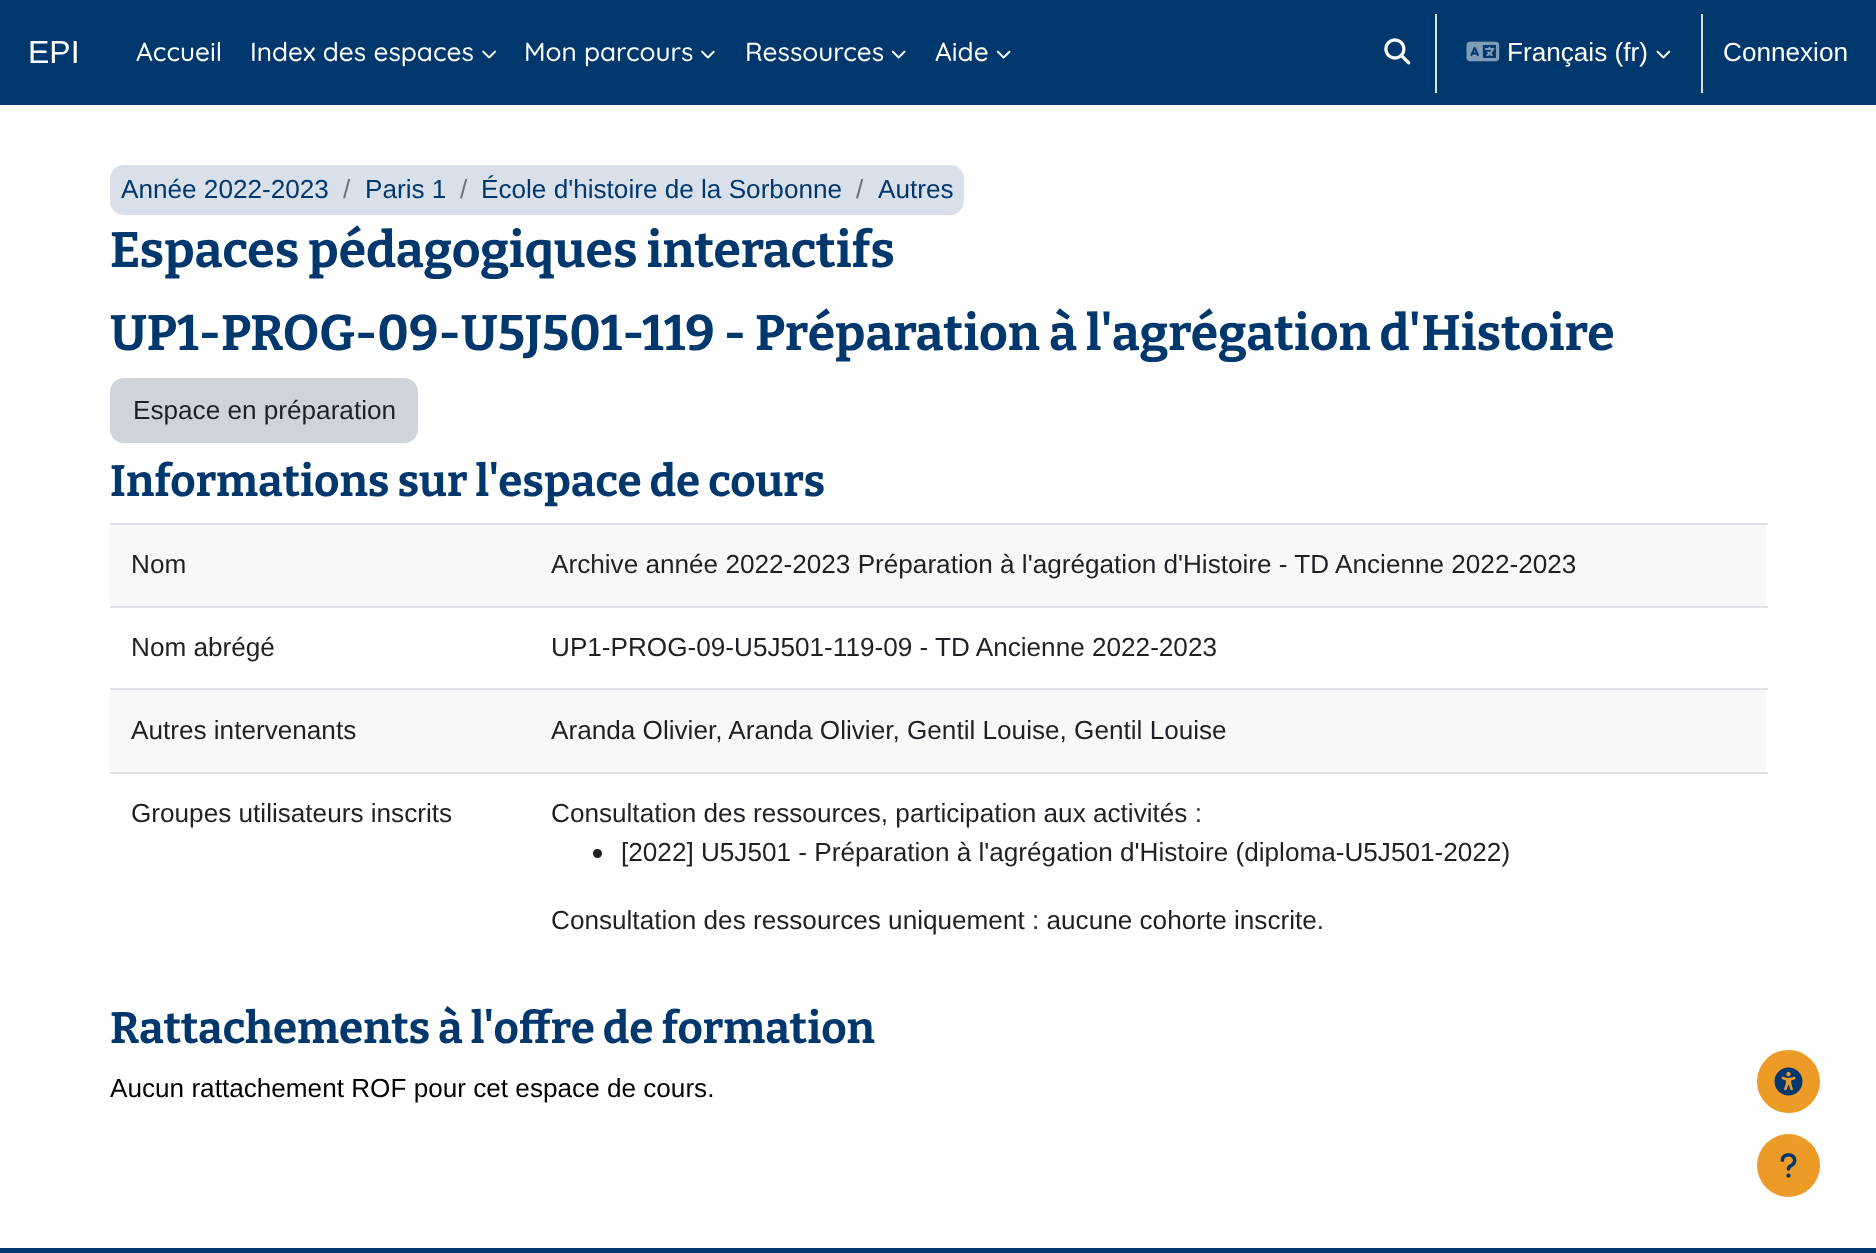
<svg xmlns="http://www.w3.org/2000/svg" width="1876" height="1253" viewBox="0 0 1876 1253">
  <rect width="100%" height="100%" fill="#ffffff"/>
  <rect x="0" y="0" width="1876" height="105" fill="#00386e"/>
  <text x="28" y="63" font-family="Liberation Sans" font-size="32" fill="#ffffff">EPI</text>
  <text x="136" y="61" font-family="Quicksand" font-size="26.15" font-weight="500" fill="#ffffff">Accueil</text>
  <text x="250" y="61" font-family="Quicksand" font-size="26.15" font-weight="500" fill="#ffffff">Index des espaces</text>
  <image x="482" y="50" width="14" height="9" href="img1.png"/>
  <text x="524" y="61" font-family="Quicksand" font-size="26.15" font-weight="500" fill="#ffffff">Mon parcours</text>
  <image x="701" y="50" width="14" height="9" href="img2.png"/>
  <text x="745" y="61" font-family="Quicksand" font-size="26.15" font-weight="500" fill="#ffffff">Ressources</text>
  <image x="891" y="50" width="15" height="9" href="img3.png"/>
  <text x="935" y="61" font-family="Quicksand" font-size="26.15" font-weight="500" fill="#ffffff">Aide</text>
  <image x="996" y="50" width="15" height="9" href="img3.png"/>
  <image x="1384" y="38" width="27" height="27" href="img4.png"/>
  <rect x="1435" y="14" width="2" height="79" fill="#dee2e6"/>
  <image x="1466" y="41" width="34" height="21" href="img5.png"/>
  <text x="1507" y="61" font-family="Liberation Sans" font-size="26.15" fill="#ffffff">Français (fr)</text>
  <image x="1656" y="50" width="15" height="9" href="img6.png"/>
  <rect x="1701" y="14" width="2" height="79" fill="#dee2e6"/>
  <text x="1723" y="61" font-family="Liberation Sans" font-size="26.15" fill="#ffffff">Connexion</text>
  <rect x="110" y="165" width="854" height="50" rx="14" fill="#d9e0e9"/>
  <text x="121" y="198" font-family="Liberation Sans" font-size="26.15" fill="#00386e">Année 2022-2023</text>
  <text x="343" y="198" font-family="Liberation Sans" font-size="26.15" fill="#6a737b">/</text>
  <text x="365" y="198" font-family="Liberation Sans" font-size="26.15" fill="#00386e">Paris 1</text>
  <text x="460" y="198" font-family="Liberation Sans" font-size="26.15" fill="#6a737b">/</text>
  <text x="481" y="198" font-family="Liberation Sans" font-size="26.15" fill="#00386e">École d'histoire de la Sorbonne</text>
  <text x="856" y="198" font-family="Liberation Sans" font-size="26.15" fill="#6a737b">/</text>
  <text x="878" y="198" font-family="Liberation Sans" font-size="26.15" fill="#00386e">Autres</text>
  <text x="110" y="267" font-family="Bitter" font-size="49.9" font-weight="bold" fill="#00386e">Espaces pédagogiques interactifs</text>
  <text x="110" y="350" font-family="Bitter" font-size="49.9" font-weight="bold" fill="#00386e">UP1-PROG-09-U5J501-119 - Préparation à l'agrégation d'Histoire</text>
  <rect x="111" y="379" width="306" height="63" rx="13" fill="#ced4da" stroke="#ced4da" stroke-width="2"/>
  <text x="133" y="419" font-family="Liberation Sans" font-size="26.15" fill="#1d2125">Espace en préparation</text>
  <text x="110" y="496" font-family="Bitter" font-size="44" font-weight="bold" fill="#00386e">Informations sur l'espace de cours</text>
  <rect x="110" y="525" width="1656" height="81" fill="#f8f8f8"/>
  <text x="131" y="573" font-family="Liberation Sans" font-size="26.15" fill="#1d2125">Nom</text>
  <rect x="110" y="523" width="1658" height="2" fill="#dee2e6"/>
  <text x="551" y="573" font-family="Liberation Sans" font-size="26.15" fill="#1d2125">Archive année 2022-2023 Préparation à l'agrégation d'Histoire - TD Ancienne 2022-2023</text>
  <text x="131" y="656" font-family="Liberation Sans" font-size="26.15" fill="#1d2125">Nom abrégé</text>
  <rect x="110" y="606" width="1658" height="2" fill="#dee2e6"/>
  <text x="551" y="656" font-family="Liberation Sans" font-size="26.15" fill="#1d2125">UP1-PROG-09-U5J501-119-09 - TD Ancienne 2022-2023</text>
  <rect x="110" y="690" width="1656" height="82" fill="#f8f8f8"/>
  <text x="131" y="739" font-family="Liberation Sans" font-size="26.15" fill="#1d2125">Autres intervenants</text>
  <rect x="110" y="688" width="1658" height="2" fill="#dee2e6"/>
  <text x="551" y="739" font-family="Liberation Sans" font-size="26.15" fill="#1d2125">Aranda Olivier, Aranda Olivier, Gentil Louise, Gentil Louise</text>
  <text x="131" y="822" font-family="Liberation Sans" font-size="26.15" fill="#1d2125">Groupes utilisateurs inscrits</text>
  <rect x="110" y="772" width="1658" height="2" fill="#dee2e6"/>
  <text x="551" y="822" font-family="Liberation Sans" font-size="26.15" fill="#1d2125">Consultation des ressources, participation aux activités :</text>
  <circle cx="597.5" cy="853.5" r="4.5" fill="#1d2125"/>
  <text x="621" y="861" font-family="Liberation Sans" font-size="26.15" fill="#1d2125">[2022] U5J501 - Préparation à l'agrégation d'Histoire (diploma-U5J501-2022)</text>
  <text x="551" y="929" font-family="Liberation Sans" font-size="26.15" fill="#1d2125">Consultation des ressources uniquement : aucune cohorte inscrite.</text>
  <text x="110" y="1043" font-family="Bitter" font-size="44" font-weight="bold" fill="#00386e">Rattachements à l'offre de formation</text>
  <text x="110" y="1097" font-family="Liberation Sans" font-size="26.15" fill="#000000">Aucun rattachement ROF pour cet espace de cours.</text>
  <circle cx="1788.5" cy="1081.5" r="30.5" fill="#ed9b27" stroke="#ed9b27" stroke-width="2"/>
  <image x="1774" y="1067" width="29" height="29" href="img7.png"/>
  <circle cx="1788.5" cy="1165.5" r="31.5" fill="#ed9b27"/>
  <image x="1780" y="1153" width="17" height="25" href="img8.png"/>
  <rect x="0" y="1248" width="1876" height="5" fill="#00386e"/>
</svg>
